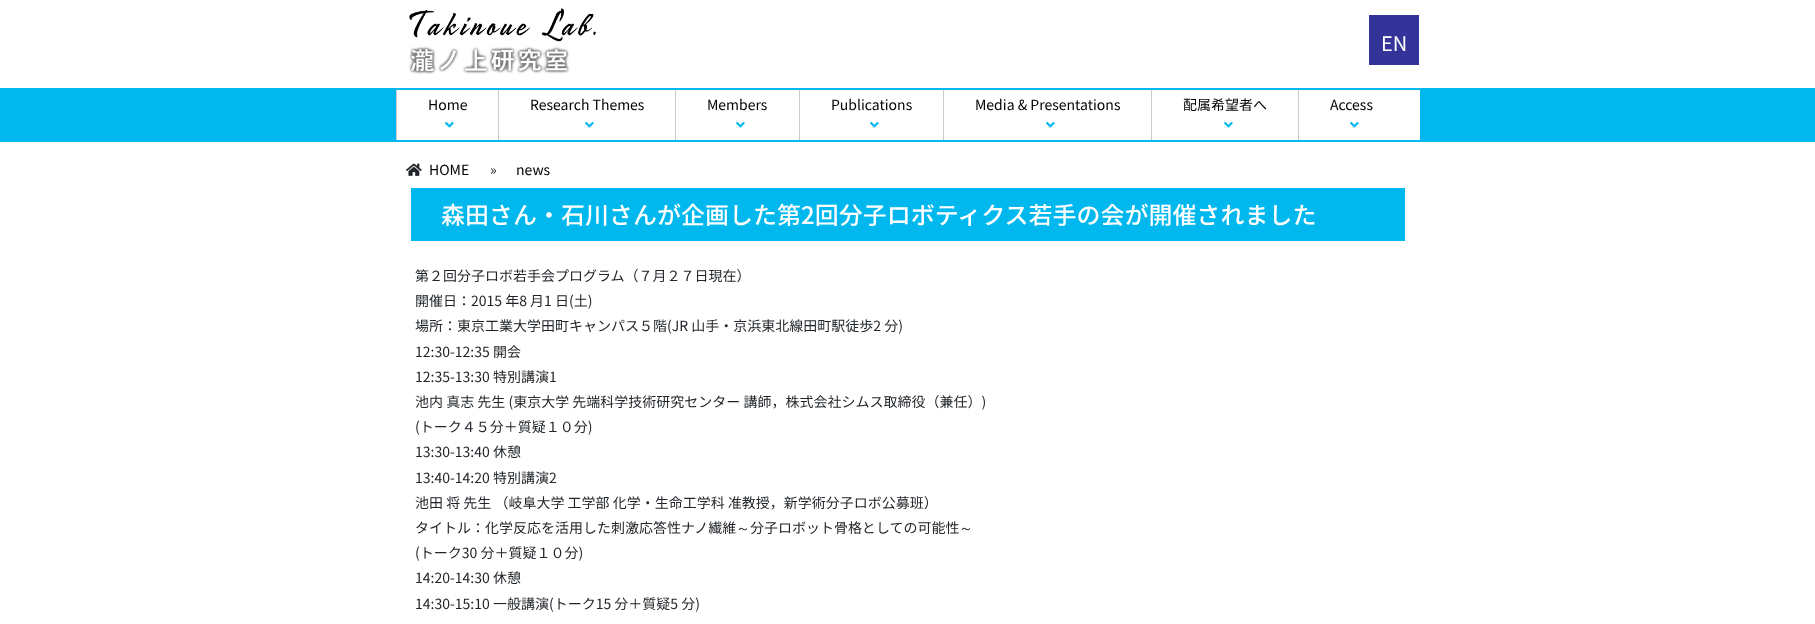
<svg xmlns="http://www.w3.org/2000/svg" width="1815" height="624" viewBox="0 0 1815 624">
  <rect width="100%" height="100%" fill="#ffffff"/>
  <image x="409" y="8" width="187" height="66" href="img1.png"/>
  <rect x="1369" y="15" width="50" height="50" fill="#333399"/>
  <text x="1381" y="51" font-family="Noto Sans JP" font-size="20" fill="#ffffff">EN</text>
  <rect x="0" y="88" width="1815" height="54" fill="#00b8ee"/>
  <rect x="397" y="90" width="1023" height="50" fill="#ffffff"/>
  <rect x="396" y="90" width="1" height="50" fill="#cccccc"/>
  <text x="428" y="110" font-family="Noto Sans JP" font-size="14" fill="#000000">Home</text>
  <image x="445" y="122" width="9" height="6" href="img2.png"/>
  <rect x="498" y="90" width="1" height="50" fill="#cccccc"/>
  <text x="530" y="110" font-family="Noto Sans JP" font-size="14" fill="#000000">Research Themes</text>
  <image x="585" y="122" width="9" height="6" href="img2.png"/>
  <rect x="675" y="90" width="1" height="50" fill="#cccccc"/>
  <text x="707" y="110" font-family="Noto Sans JP" font-size="14" fill="#000000">Members</text>
  <image x="736" y="122" width="9" height="6" href="img2.png"/>
  <rect x="799" y="90" width="1" height="50" fill="#cccccc"/>
  <text x="831" y="110" font-family="Noto Sans JP" font-size="14" fill="#000000">Publications</text>
  <image x="870" y="122" width="9" height="6" href="img2.png"/>
  <rect x="943" y="90" width="1" height="50" fill="#cccccc"/>
  <text x="975" y="110" font-family="Noto Sans JP" font-size="14" fill="#000000">Media &amp; Presentations</text>
  <image x="1046" y="122" width="9" height="6" href="img2.png"/>
  <rect x="1151" y="90" width="1" height="50" fill="#cccccc"/>
  <text x="1183" y="110" font-family="Noto Sans JP" font-size="14" fill="#000000">配属希望者へ</text>
  <image x="1224" y="122" width="9" height="6" href="img2.png"/>
  <rect x="1298" y="90" width="1" height="50" fill="#cccccc"/>
  <text x="1330" y="110" font-family="Noto Sans JP" font-size="14" fill="#000000">Access</text>
  <image x="1350" y="122" width="9" height="6" href="img2.png"/>
  <image x="406" y="163" width="16" height="13" href="img3.png"/>
  <text x="429" y="175" font-family="Noto Sans JP" font-size="14" fill="#000000">HOME</text>
  <text x="490" y="175" font-family="Noto Sans JP" font-size="14" fill="#212529">»</text>
  <text x="516" y="175" font-family="Noto Sans JP" font-size="14" fill="#000000">news</text>
  <rect x="411" y="188" width="994" height="53" fill="#00b8ee"/>
  <text x="441" y="224" font-family="Noto Sans JP" font-size="24" font-weight="500" fill="#ffffff">森田さん・石川さんが企画した第2回分子ロボティクス若手の会が開催されました</text>
  <text x="415" y="281" font-family="Noto Sans JP" font-size="14" fill="#212529">第２回分子ロボ若手会プログラム（７月２７日現在）</text>
  <text x="415" y="306" font-family="Noto Sans JP" font-size="14" fill="#212529">開催日：2015 年8 月1 日(土)</text>
  <text x="415" y="331" font-family="Noto Sans JP" font-size="14" fill="#212529">場所：東京工業大学田町キャンパス５階(JR 山手・京浜東北線田町駅徒歩2 分)</text>
  <text x="415" y="357" font-family="Noto Sans JP" font-size="14" fill="#212529">12:30-12:35 開会</text>
  <text x="415" y="382" font-family="Noto Sans JP" font-size="14" fill="#212529">12:35-13:30 特別講演1</text>
  <text x="415" y="407" font-family="Noto Sans JP" font-size="14" fill="#212529">池内 真志 先生 (東京大学 先端科学技術研究センター 講師，株式会社シムス取締役（兼任）)</text>
  <text x="415" y="432" font-family="Noto Sans JP" font-size="14" fill="#212529">(トーク４５分＋質疑１０分)</text>
  <text x="415" y="457" font-family="Noto Sans JP" font-size="14" fill="#212529">13:30-13:40 休憩</text>
  <text x="415" y="483" font-family="Noto Sans JP" font-size="14" fill="#212529">13:40-14:20 特別講演2</text>
  <text x="415" y="508" font-family="Noto Sans JP" font-size="14" fill="#212529">池田 将 先生 （岐阜大学 工学部 化学・生命工学科 准教授，新学術分子ロボ公募班）</text>
  <text x="415" y="533" font-family="Noto Sans JP" font-size="14" fill="#212529">タイトル：化学反応を活用した刺激応答性ナノ繊維</text>
  <text x="736" y="533" font-family="WenQuanYi Zen Hei" font-size="14" font-weight="500" fill="#212529">～</text>
  <text x="750" y="533" font-family="Noto Sans JP" font-size="14" fill="#212529">分子ロボット骨格としての可能性</text>
  <text x="959" y="533" font-family="WenQuanYi Zen Hei" font-size="14" font-weight="500" fill="#212529">～</text>
  <text x="415" y="558" font-family="Noto Sans JP" font-size="14" fill="#212529">(トーク30 分＋質疑１０分)</text>
  <text x="415" y="583" font-family="Noto Sans JP" font-size="14" fill="#212529">14:20-14:30 休憩</text>
  <text x="415" y="609" font-family="Noto Sans JP" font-size="14" fill="#212529">14:30-15:10 一般講演(トーク15 分＋質疑5 分)</text>
</svg>
